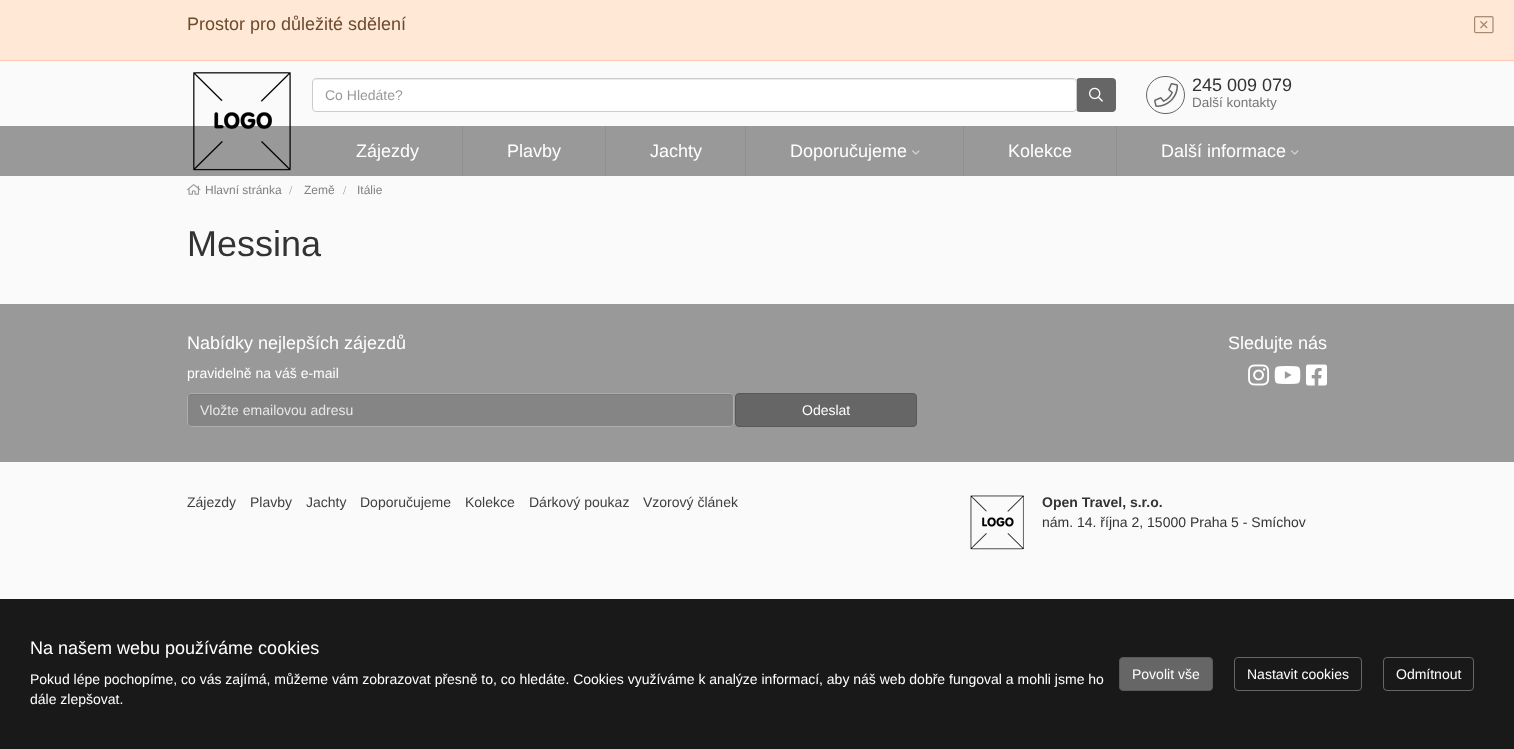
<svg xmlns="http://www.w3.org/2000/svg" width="1514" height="749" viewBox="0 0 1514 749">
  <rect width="100%" height="100%" fill="#fafafa"/>
  <rect x="0" y="0" width="1514" height="60" fill="#ffe9d6"/>
  <rect x="0" y="60" width="1514" height="1" fill="#ffc9b3"/>
  <text x="187" y="30" font-family="Liberation Sans" font-size="18" fill="#6b4a2e">Prostor pro důležité sdělení</text>
  <image x="1474" y="16" width="20" height="18" href="img1.png"/>
  <rect x="0" y="126" width="1514" height="50" fill="#999999"/>
  <image x="193" y="72" width="98" height="99" href="img2.png"/>
  <rect x="312" y="78" width="804" height="34" fill="#ffffff"/>
  <rect x="1076" y="78" width="40" height="34" rx="4" fill="#666666"/>
  <rect x="312" y="78" width="765" height="34" rx="4" fill="#ffffff"/>
  <path d="M316 80H1073C1075 80 1076 81 1076 83C1076 81 1075 79 1073 79H316C314 79 313 81 313 83C313 81 314 80 316 80Z" fill="#ececec"/>
  <rect x="312.5" y="78.5" width="764" height="33" rx="3.5" fill="none" stroke="#cccccc"/>
  <text x="325" y="100" font-family="Liberation Sans" font-size="14" fill="#999999">Co Hledáte?</text>
  <image x="1089" y="87" width="14" height="15" href="img3.png"/>
  <rect x="1146.5" y="76.5" width="38" height="37" rx="18.5" fill="none" stroke="#666666"/>
  <image x="1154" y="83" width="24" height="24" href="img4.png"/>
  <text x="1192" y="91" font-family="Liberation Sans" font-size="18" fill="#333333">245 009 079</text>
  <text x="1192" y="107" font-family="Liberation Sans" font-size="13.5" fill="#777777">Další kontakty</text>
  <rect x="462" y="126" width="1" height="50" fill="#8f8f8f"/>
  <text x="356" y="157" font-family="Liberation Sans" font-size="18" fill="#ffffff">Zájezdy</text>
  <rect x="605" y="126" width="1" height="50" fill="#8f8f8f"/>
  <text x="507" y="157" font-family="Liberation Sans" font-size="18" fill="#ffffff">Plavby</text>
  <rect x="745" y="126" width="1" height="50" fill="#8f8f8f"/>
  <text x="650" y="157" font-family="Liberation Sans" font-size="18" fill="#ffffff">Jachty</text>
  <rect x="963" y="126" width="1" height="50" fill="#8f8f8f"/>
  <text x="790" y="157" font-family="Liberation Sans" font-size="18" fill="#ffffff">Doporučujeme</text>
  <image x="912" y="150" width="8" height="5" href="img5.png"/>
  <rect x="1116" y="126" width="1" height="50" fill="#8f8f8f"/>
  <text x="1008" y="157" font-family="Liberation Sans" font-size="18" fill="#ffffff">Kolekce</text>
  <text x="1161" y="157" font-family="Liberation Sans" font-size="18" fill="#ffffff">Další informace</text>
  <image x="1291" y="150" width="8" height="5" href="img5.png"/>
  <image x="187" y="184" width="14" height="11" href="img6.png"/>
  <text x="205" y="194" font-family="Liberation Sans" font-size="12" fill="#818181">Hlavní stránka</text>
  <text x="289" y="194" font-family="Liberation Serif" font-size="12" fill="#999999">/</text>
  <text x="304" y="194" font-family="Liberation Sans" font-size="12" fill="#818181">Země</text>
  <text x="343" y="194" font-family="Liberation Serif" font-size="12" fill="#999999">/</text>
  <text x="357" y="194" font-family="Liberation Sans" font-size="12" fill="#818181">Itálie</text>
  <text x="187" y="256" font-family="Liberation Sans" font-size="36" fill="#333333">Messina</text>
  <rect x="0" y="304" width="1514" height="158" fill="#999999"/>
  <text x="187" y="349" font-family="Liberation Sans" font-size="18" fill="#ffffff">Nabídky nejlepších zájezdů</text>
  <text x="187" y="378" font-family="Liberation Sans" font-size="14" fill="#ffffff">pravidelně na váš e-mail</text>
  <rect x="187" y="393" width="547" height="34" rx="4" fill="#858585"/>
  <path d="M191 395H730C732 395 733 396 733 398V397C733 395 732 394 730 394H191C189 394 188 395 188 397V398C188 396 189 395 191 395Z" fill="#7b7b7b"/>
  <rect x="187.5" y="393.5" width="546" height="33" rx="3.5" fill="none" stroke="#adadad"/>
  <text x="200" y="415" font-family="Liberation Sans" font-size="14" fill="#e7e7e7">Vložte emailovou adresu</text>
  <rect x="735.5" y="393.5" width="181" height="33" rx="3.5" fill="#666666" stroke="#595959"/>
  <text x="802" y="415" font-family="Liberation Sans" font-size="14" fill="#ffffff">Odeslat</text>
  <text x="1228" y="349" font-family="Liberation Sans" font-size="18" fill="#ffffff">Sledujte nás</text>
  <image x="1248" y="364" width="22" height="22" href="img7.png"/>
  <image x="1274" y="366" width="27" height="18" href="img8.png"/>
  <image x="1306" y="364" width="21" height="22" href="img9.png"/>
  <text x="187" y="507" font-family="Liberation Sans" font-size="14" fill="#404040">Zájezdy</text>
  <text x="250" y="507" font-family="Liberation Sans" font-size="14" fill="#404040">Plavby</text>
  <text x="306" y="507" font-family="Liberation Sans" font-size="14" fill="#404040">Jachty</text>
  <text x="360" y="507" font-family="Liberation Sans" font-size="14" fill="#404040">Doporučujeme</text>
  <text x="465" y="507" font-family="Liberation Sans" font-size="14" fill="#404040">Kolekce</text>
  <text x="529" y="507" font-family="Liberation Sans" font-size="14" fill="#404040">Dárkový poukaz</text>
  <text x="643" y="507" font-family="Liberation Sans" font-size="14" fill="#404040">Vzorový článek</text>
  <image x="970" y="495" width="54" height="55" href="img10.png"/>
  <text x="1042" y="507" font-family="Liberation Sans" font-size="14" font-weight="bold" fill="#333333">Open Travel, s.r.o.</text>
  <text x="1042" y="527" font-family="Liberation Sans" font-size="14" fill="#333333">nám. 14. října 2, 15000 Praha 5 - Smíchov</text>
  <rect x="0" y="599" width="1514" height="150" fill="#191919"/>
  <text x="30" y="654" font-family="Liberation Sans" font-size="18" fill="#ffffff">Na našem webu používáme cookies</text>
  <text x="30" y="684" font-family="Liberation Sans" font-size="14" fill="#ffffff">Pokud lépe pochopíme, co vás zajímá, můžeme vám zobrazovat přesně to, co hledáte. Cookies využíváme k analýze informací, aby náš web dobře fungoval a mohli jsme ho</text>
  <text x="30" y="704" font-family="Liberation Sans" font-size="14" fill="#ffffff">dále zlepšovat.</text>
  <rect x="1119.5" y="657.5" width="93" height="33" rx="3.5" fill="#666666" stroke="#595959"/>
  <text x="1132" y="679" font-family="Liberation Sans" font-size="14" fill="#ffffff">Povolit vše</text>
  <rect x="1234.5" y="657.5" width="127" height="33" rx="3.5" fill="none" stroke="#666666"/>
  <text x="1247" y="679" font-family="Liberation Sans" font-size="14" fill="#ffffff">Nastavit cookies</text>
  <rect x="1383.5" y="657.5" width="90" height="33" rx="3.5" fill="none" stroke="#666666"/>
  <text x="1396" y="679" font-family="Liberation Sans" font-size="14" fill="#ffffff">Odmítnout</text>
</svg>
